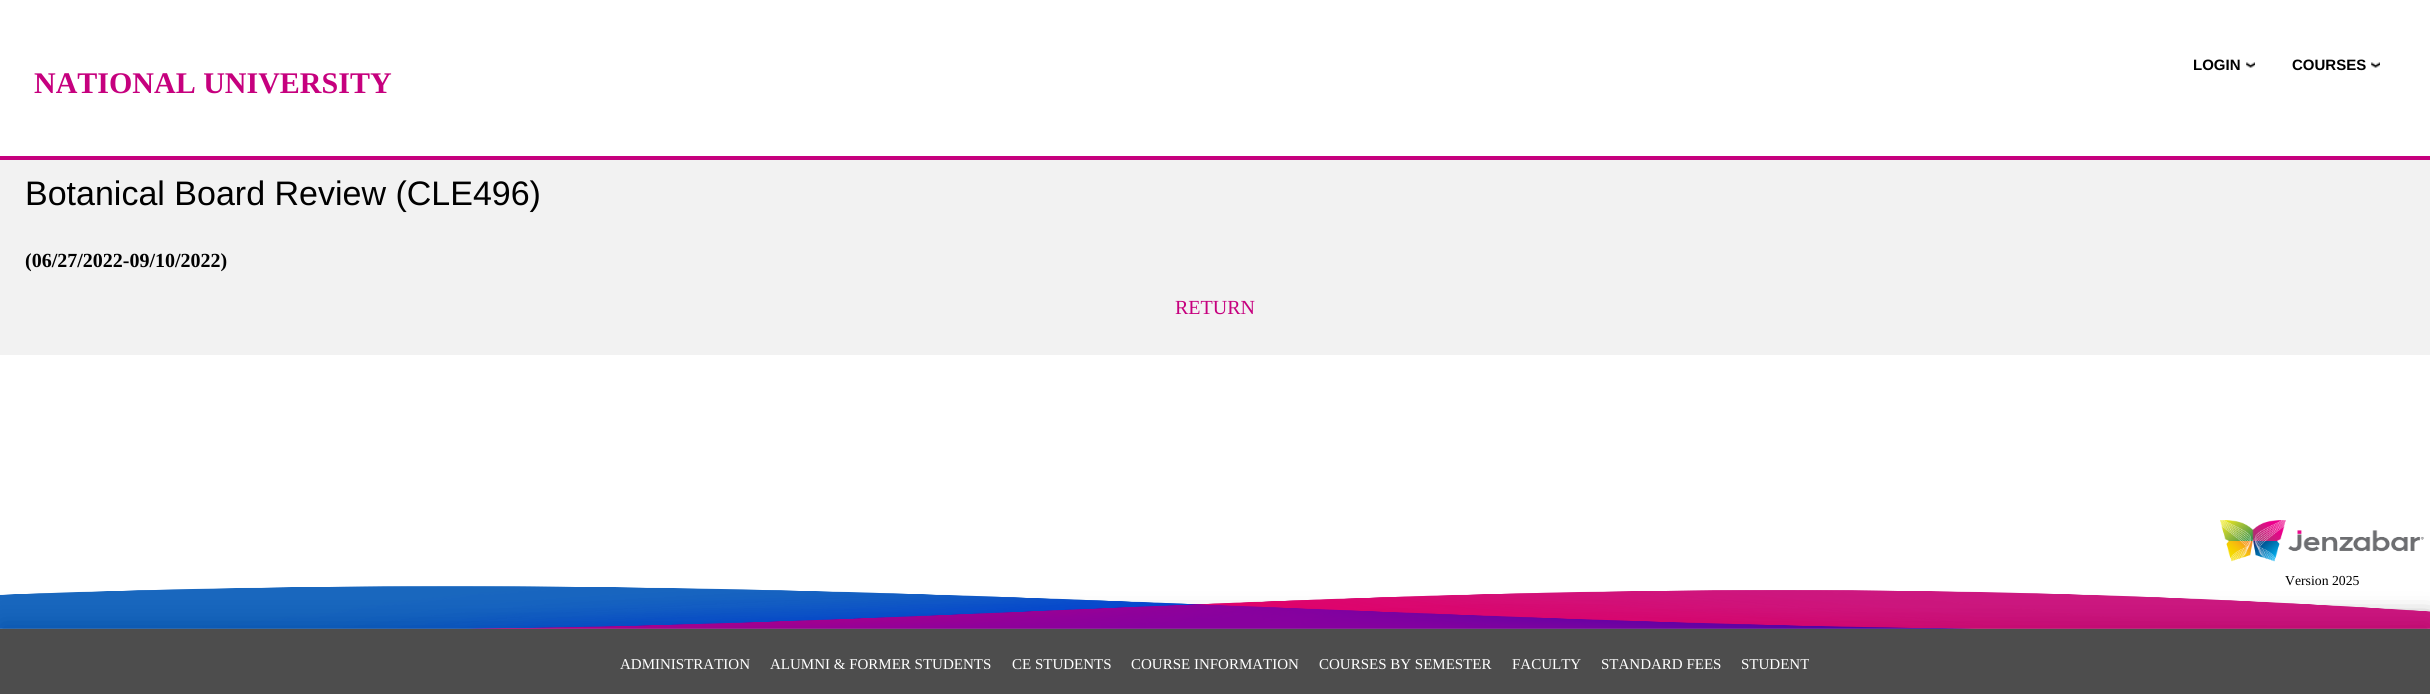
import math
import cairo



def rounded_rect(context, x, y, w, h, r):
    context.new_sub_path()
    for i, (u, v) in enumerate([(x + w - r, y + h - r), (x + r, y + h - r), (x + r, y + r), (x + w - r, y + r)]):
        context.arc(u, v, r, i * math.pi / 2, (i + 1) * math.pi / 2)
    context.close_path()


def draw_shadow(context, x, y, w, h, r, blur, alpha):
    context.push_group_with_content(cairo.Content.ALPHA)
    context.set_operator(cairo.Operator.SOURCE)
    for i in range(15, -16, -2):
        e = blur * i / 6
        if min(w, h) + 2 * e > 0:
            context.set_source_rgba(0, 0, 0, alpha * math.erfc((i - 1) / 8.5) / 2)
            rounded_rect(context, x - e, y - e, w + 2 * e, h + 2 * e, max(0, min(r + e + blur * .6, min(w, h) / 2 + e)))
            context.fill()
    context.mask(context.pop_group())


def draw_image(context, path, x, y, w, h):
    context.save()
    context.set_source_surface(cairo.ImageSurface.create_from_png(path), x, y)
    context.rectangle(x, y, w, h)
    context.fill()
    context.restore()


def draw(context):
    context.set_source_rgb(1, 1, 1)
    context.paint()
    context.set_source_rgb(198 / 255, 0, 126 / 255)
    context.rectangle(0, 156, 2430, 4)
    context.fill()
    draw_image(context, "images/1.png", 2246, 62, 9, 6)
    draw_image(context, "images/2.png", 2371, 62, 9, 6)
    context.set_source_rgb(242 / 255, 242 / 255, 242 / 255)
    context.rectangle(0, 160, 2430, 195)
    context.fill()
    draw_image(context, "images/3.png", 2220, 520, 204, 42)
    context.set_source_rgb(77 / 255, 77 / 255, 77 / 255)
    draw_shadow(context, 0, 623, 2430, 66, 0, 12.5, 1)
    draw_image(context, "images/4.png", 0, 586, 2430, 43)
    context.set_source_rgb(77 / 255, 77 / 255, 77 / 255)
    context.rectangle(0, 629, 2430, 65)
    context.fill()
    context.select_font_face("Liberation Sans", cairo.FontSlant.NORMAL, cairo.FontWeight.BOLD)
    context.set_font_size(15)
    context.set_source_rgb(0, 0, 0)
    context.move_to(2193, 70)
    context.show_text("LOGIN")
    context.move_to(2292, 70)
    context.show_text("COURSES")
    context.select_font_face("Liberation Serif", cairo.FontSlant.NORMAL, cairo.FontWeight.BOLD)
    context.set_font_size(30)
    context.set_source_rgb(198 / 255, 0, 126 / 255)
    context.move_to(34, 93)
    context.show_text("NATIONAL UNIVERSITY")
    context.select_font_face("Liberation Sans")
    context.set_font_size(34)
    context.set_source_rgb(0, 0, 0)
    context.move_to(25, 205)
    context.show_text("Botanical Board Review (CLE496)")
    context.select_font_face("Liberation Serif", cairo.FontSlant.NORMAL, cairo.FontWeight.BOLD)
    context.set_font_size(20)
    context.move_to(25, 267)
    context.show_text("(06/27/2022-09/10/2022)")
    context.select_font_face("Liberation Serif")
    context.set_source_rgb(198 / 255, 0, 126 / 255)
    context.move_to(1175, 314)
    context.show_text("RETURN")
    context.set_font_size(13.75)
    context.set_source_rgb(0, 0, 0)
    context.move_to(2285, 585)
    context.show_text("Version 2025")
    context.set_font_size(15)
    context.set_source_rgb(1, 1, 1)
    context.move_to(620, 669)
    context.show_text("ADMINISTRATION")
    context.move_to(770, 669)
    context.show_text("ALUMNI & FORMER STUDENTS")
    context.move_to(1012, 669)
    context.show_text("CE STUDENTS")
    context.move_to(1131, 669)
    context.show_text("COURSE INFORMATION")
    context.move_to(1319, 669)
    context.show_text("COURSES BY SEMESTER")
    context.move_to(1512, 669)
    context.show_text("FACULTY")
    context.move_to(1601, 669)
    context.show_text("STANDARD FEES")
    context.move_to(1741, 669)
    context.show_text("STUDENT")


surface = cairo.ImageSurface(cairo.Format.RGB24, 2430, 694)
context = cairo.Context(surface)
options = cairo.FontOptions()
options.set_hint_metrics(cairo.HintMetrics.OFF)
options.set_hint_style(cairo.HintStyle.NONE)
context.set_font_options(options)
context.set_miter_limit(4)
draw(context)
surface.write_to_png("out.png")
